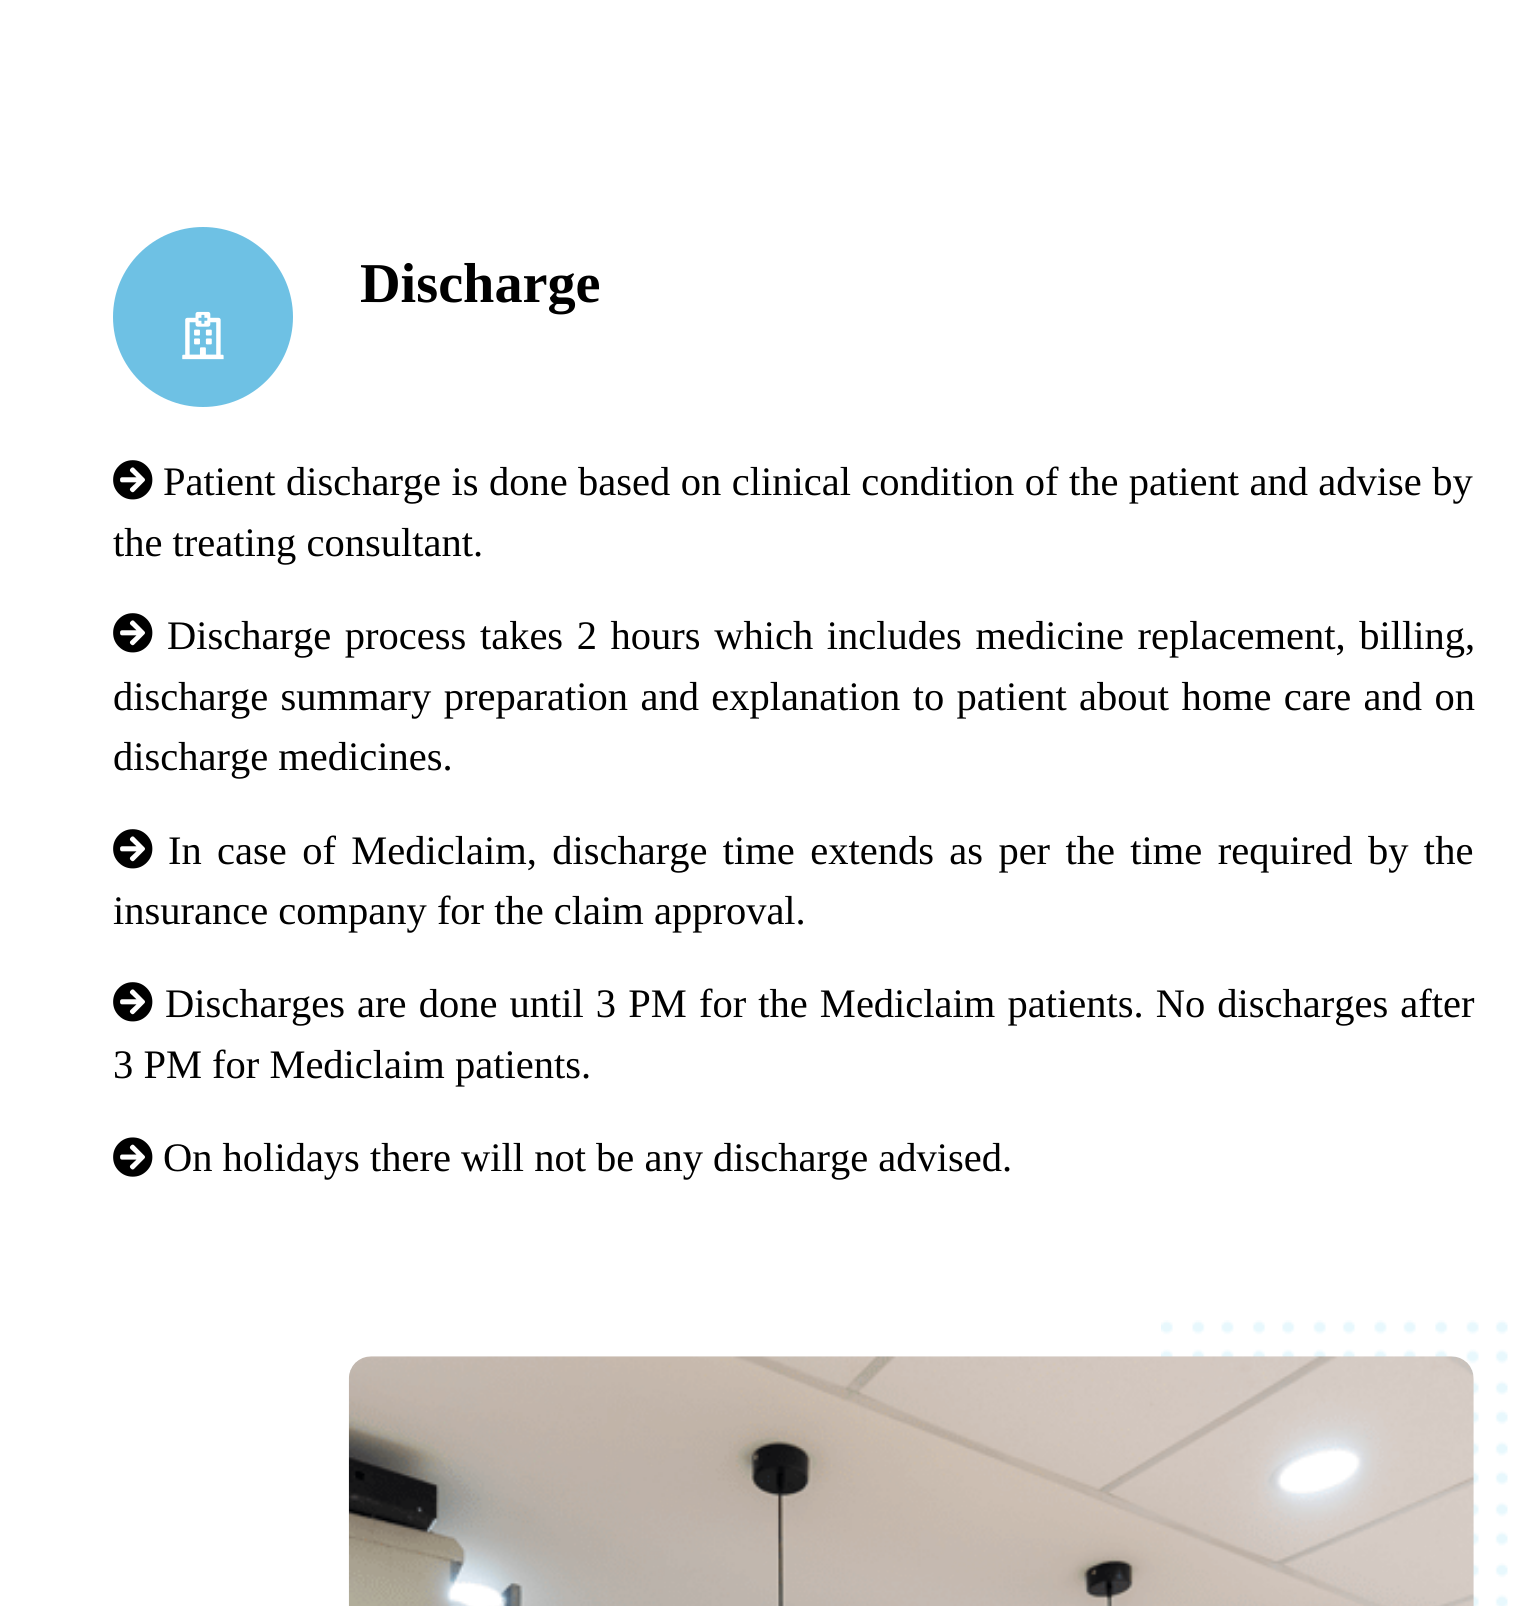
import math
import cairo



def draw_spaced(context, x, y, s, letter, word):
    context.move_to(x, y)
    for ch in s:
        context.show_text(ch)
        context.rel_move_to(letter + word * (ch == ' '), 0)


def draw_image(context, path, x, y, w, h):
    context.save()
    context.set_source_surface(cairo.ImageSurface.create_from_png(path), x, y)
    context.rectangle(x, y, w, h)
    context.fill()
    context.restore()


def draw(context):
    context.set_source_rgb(1, 1, 1)
    context.paint()
    context.set_source_rgb(110 / 255, 193 / 255, 228 / 255)
    context.arc(203, 317, 90, 0, 2 * math.pi)
    context.fill()
    draw_image(context, "images/1.png", 182, 311, 42, 49)
    draw_image(context, "images/2.png", 113, 460, 40, 40)
    draw_image(context, "images/2.png", 113, 613, 40, 40)
    draw_image(context, "images/2.png", 113, 829, 40, 40)
    draw_image(context, "images/2.png", 113, 982, 40, 40)
    draw_image(context, "images/3.png", 113, 1137, 40, 40)
    draw_image(context, "images/4.png", 1161, 1320, 347, 286)
    draw_image(context, "images/5.png", 348, 1356, 1126, 250)
    context.select_font_face("Liberation Serif", cairo.FontSlant.NORMAL, cairo.FontWeight.BOLD)
    context.set_font_size(56.25)
    context.set_source_rgb(0, 0, 0)
    context.move_to(360, 302)
    context.show_text("Discharge")
    context.select_font_face("Liberation Serif")
    context.set_font_size(40.5)
    draw_spaced(context, 163, 495, "Patient discharge is done based on clinical condition of the patient and advise by", 0, 0.3)
    context.move_to(113, 556)
    context.show_text("the treating consultant.")
    draw_spaced(context, 167, 649, "Discharge process takes 2 hours which includes medicine replacement, billing,", 0, 3.5)
    draw_spaced(context, 113, 710, "discharge summary preparation and explanation to patient about home care and on", 0, 2.25)
    context.move_to(113, 770)
    context.show_text("discharge medicines.")
    draw_spaced(context, 168, 864, "In case of Mediclaim, discharge time extends as per the time required by the", 0, 5.25)
    context.move_to(113, 924)
    context.show_text("insurance company for the claim approval.")
    draw_spaced(context, 165, 1017, "Discharges are done until 3 PM for the Mediclaim patients. No discharges after", 0, 2)
    context.move_to(113, 1078)
    context.show_text("3 PM for Mediclaim patients.")
    context.move_to(163, 1171)
    context.show_text("On holidays there will not be any discharge advised.")


surface = cairo.ImageSurface(cairo.Format.RGB24, 1540, 1606)
context = cairo.Context(surface)
options = cairo.FontOptions()
options.set_hint_metrics(cairo.HintMetrics.OFF)
options.set_hint_style(cairo.HintStyle.NONE)
context.set_font_options(options)
context.set_miter_limit(4)
draw(context)
surface.write_to_png("out.png")
